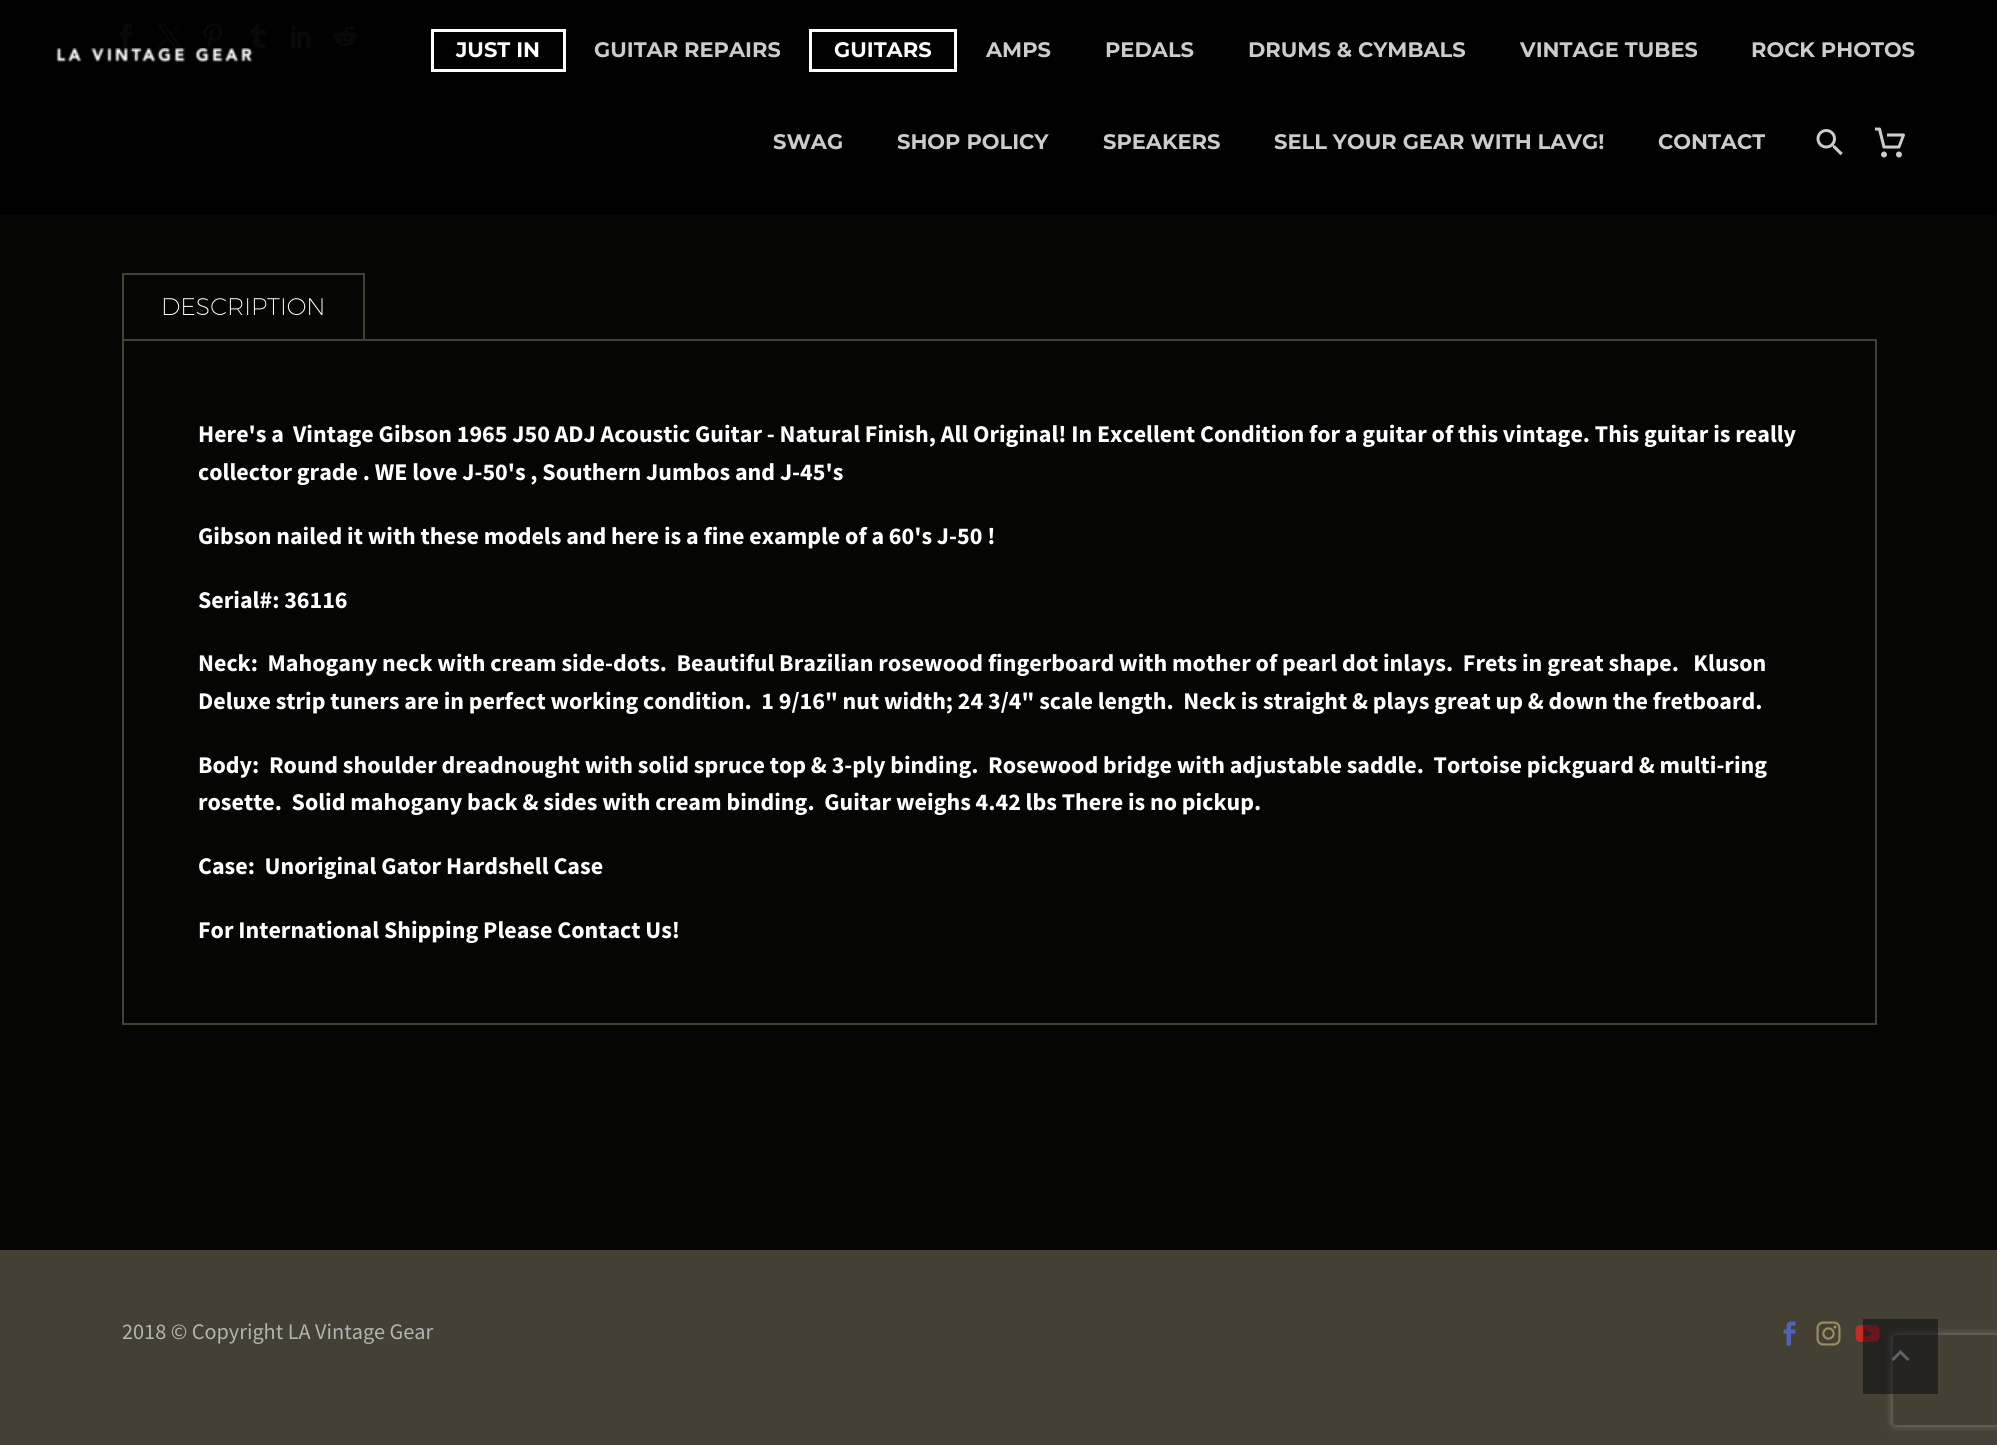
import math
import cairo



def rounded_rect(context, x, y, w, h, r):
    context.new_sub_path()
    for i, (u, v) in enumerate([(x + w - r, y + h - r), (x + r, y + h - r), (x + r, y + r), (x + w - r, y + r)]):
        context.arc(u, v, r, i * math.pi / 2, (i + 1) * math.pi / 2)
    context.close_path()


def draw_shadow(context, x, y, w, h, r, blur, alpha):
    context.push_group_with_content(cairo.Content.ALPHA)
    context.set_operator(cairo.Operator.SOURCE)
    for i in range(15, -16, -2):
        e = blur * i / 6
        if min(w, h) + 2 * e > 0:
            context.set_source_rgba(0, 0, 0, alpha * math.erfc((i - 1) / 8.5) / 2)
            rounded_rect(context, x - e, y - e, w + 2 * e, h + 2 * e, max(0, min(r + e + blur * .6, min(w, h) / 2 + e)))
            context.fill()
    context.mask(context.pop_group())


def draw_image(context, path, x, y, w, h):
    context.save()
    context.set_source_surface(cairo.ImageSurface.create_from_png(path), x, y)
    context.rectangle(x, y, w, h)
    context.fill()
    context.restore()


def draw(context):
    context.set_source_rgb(68 / 255, 64 / 255, 51 / 255)
    context.paint()
    context.set_source_rgb(5 / 255, 5 / 255, 4 / 255)
    context.rectangle(0, 0, 1997, 1250)
    context.fill()
    draw_image(context, "images/4.png", 120, 24, 13, 24)
    draw_image(context, "images/5.png", 157, 24, 25, 24)
    draw_image(context, "images/6.png", 203, 24, 20, 24)
    draw_image(context, "images/7.png", 250, 24, 16, 24)
    draw_image(context, "images/8.png", 291, 25, 20, 23)
    draw_image(context, "images/9.png", 333, 26, 24, 20)
    context.set_source_rgba(0, 0, 0, 0.95)
    context.rectangle(0, 0, 1997, 215)
    context.fill()
    draw_image(context, "images/1.png", 56, 48, 197, 14)
    context.rectangle(432.5, 30.5, 132, 40)
    context.set_source_rgb(1, 1, 1)
    context.set_line_width(3)
    context.stroke()
    context.rectangle(810.5, 30.5, 145, 40)
    context.stroke()
    draw_image(context, "images/2.png", 1816, 129, 27, 27)
    draw_image(context, "images/3.png", 1875, 127, 30, 31)
    context.rectangle(123, 340, 1753, 684)
    context.set_source_rgb(68 / 255, 64 / 255, 50 / 255)
    context.set_line_width(2)
    context.stroke()
    context.rectangle(123, 274, 241, 66)
    context.stroke()
    draw_image(context, "images/10.png", 1783, 1321, 13, 25)
    draw_image(context, "images/11.png", 1816, 1321, 25, 25)
    draw_image(context, "images/12.png", 1855, 1325, 25, 17)
    context.save()
    context.set_fill_rule(cairo.FillRule.EVEN_ODD)
    context.new_path()
    context.move_to(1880, 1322)
    context.line_to(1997, 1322)
    context.line_to(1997, 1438)
    context.line_to(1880, 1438)
    context.close_path()
    context.move_to(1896, 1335)
    context.line_to(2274, 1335)
    context.curve_to(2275.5, 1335, 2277, 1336.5, 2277, 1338)
    context.line_to(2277, 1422)
    context.curve_to(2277, 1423.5, 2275.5, 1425, 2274, 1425)
    context.line_to(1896, 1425)
    context.curve_to(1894.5, 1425, 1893, 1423.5, 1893, 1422)
    context.line_to(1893, 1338)
    context.curve_to(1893, 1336.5, 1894.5, 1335, 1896, 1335)
    context.close_path()
    context.clip()
    context.set_source_rgb(128 / 255, 128 / 255, 128 / 255)
    draw_shadow(context, 1893, 1335, 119, 90, 3, 4, 1)
    context.restore()
    context.set_source_rgba(6 / 255, 6 / 255, 15 / 255, 0.5)
    context.rectangle(1863, 1319, 75, 75)
    context.fill()
    context.set_source_rgba(153 / 255, 169 / 255, 181 / 255, 0.5)
    context.new_path()
    context.move_to(1893.5, 1361)
    context.line_to(1900.5, 1354)
    context.line_to(1907.5, 1361)
    context.line_to(1909.5, 1359)
    context.line_to(1900.5, 1350)
    context.line_to(1891.5, 1359)
    context.close_path()
    context.fill()
    context.select_font_face("Montserrat", cairo.FontSlant.NORMAL, cairo.FontWeight.BOLD)
    context.set_font_size(21)
    context.set_source_rgb(1, 1, 1)
    context.move_to(456, 57)
    context.show_text("JUST IN")
    context.set_source_rgb(204 / 255, 204 / 255, 204 / 255)
    context.move_to(594, 57)
    context.show_text("GUITAR REPAIRS")
    context.set_source_rgb(1, 1, 1)
    context.move_to(834, 57)
    context.show_text("GUITARS")
    context.set_source_rgb(204 / 255, 204 / 255, 204 / 255)
    context.move_to(986, 57)
    context.show_text("AMPS")
    context.move_to(1105, 57)
    context.show_text("PEDALS")
    context.move_to(1248, 57)
    context.show_text("DRUMS & CYMBALS")
    context.move_to(1520, 57)
    context.show_text("VINTAGE TUBES")
    context.move_to(1751, 57)
    context.show_text("ROCK PHOTOS")
    context.move_to(773, 149)
    context.show_text("SWAG")
    context.move_to(897, 149)
    context.show_text("SHOP POLICY")
    context.move_to(1103, 149)
    context.show_text("SPEAKERS")
    context.move_to(1274, 149)
    context.show_text("SELL YOUR GEAR WITH LAVG!")
    context.move_to(1658, 149)
    context.show_text("CONTACT")
    context.select_font_face("Montserrat ExtraLight")
    context.set_font_size(24)
    context.set_source_rgb(1, 1, 1)
    context.move_to(161, 315)
    context.show_text("DESCRIPTION")
    context.select_font_face("Source Sans Pro", cairo.FontSlant.NORMAL, cairo.FontWeight.BOLD)
    context.move_to(198, 442)
    context.show_text("Here's a")
    context.move_to(293, 442)
    context.show_text("Vintage Gibson 1965 J50 ADJ Acoustic Guitar - Natural Finish, All Original! In Excellent Condition for a guitar of this vintage. This guitar is really")
    context.move_to(198, 480)
    context.show_text("collector grade . WE love J-50's , Southern Jumbos and J-45's")
    context.move_to(198, 544)
    context.show_text("Gibson nailed it with these models and here is a fine example of a 60's J-50 !")
    context.move_to(198, 608)
    context.show_text("Serial#: 36116")
    context.move_to(198, 671)
    context.show_text("Neck:  Mahogany neck with cream side-dots.  Beautiful Brazilian rosewood fingerboard with mother of pearl dot inlays.  Frets in great shape.   Kluson")
    context.move_to(198, 709)
    context.show_text("Deluxe strip tuners are in perfect working condition.  1 9/16\" nut width; 24 3/4\" scale length.  Neck is straight & plays great up & down the fretboard.")
    context.move_to(198, 773)
    context.show_text("Body:  Round shoulder dreadnought with solid spruce top & 3-ply binding.  Rosewood bridge with adjustable saddle.  Tortoise pickguard & multi-ring")
    context.move_to(198, 810)
    context.show_text("rosette.  Solid mahogany back & sides with cream binding.  Guitar weighs 4.42 lbs There is no pickup.")
    context.move_to(198, 874)
    context.show_text("Case:  Unoriginal Gator Hardshell Case")
    context.move_to(198, 938)
    context.show_text("For International Shipping Please Contact Us!")
    context.select_font_face("Source Sans Pro")
    context.set_font_size(22.25)
    context.set_source_rgb(179 / 255, 179 / 255, 179 / 255)
    context.move_to(122, 1339)
    context.show_text("2018 © Copyright LA Vintage Gear")


surface = cairo.ImageSurface(cairo.Format.RGB24, 1997, 1445)
context = cairo.Context(surface)
options = cairo.FontOptions()
options.set_hint_metrics(cairo.HintMetrics.OFF)
options.set_hint_style(cairo.HintStyle.NONE)
context.set_font_options(options)
context.set_miter_limit(4)
draw(context)
surface.write_to_png("out.png")
